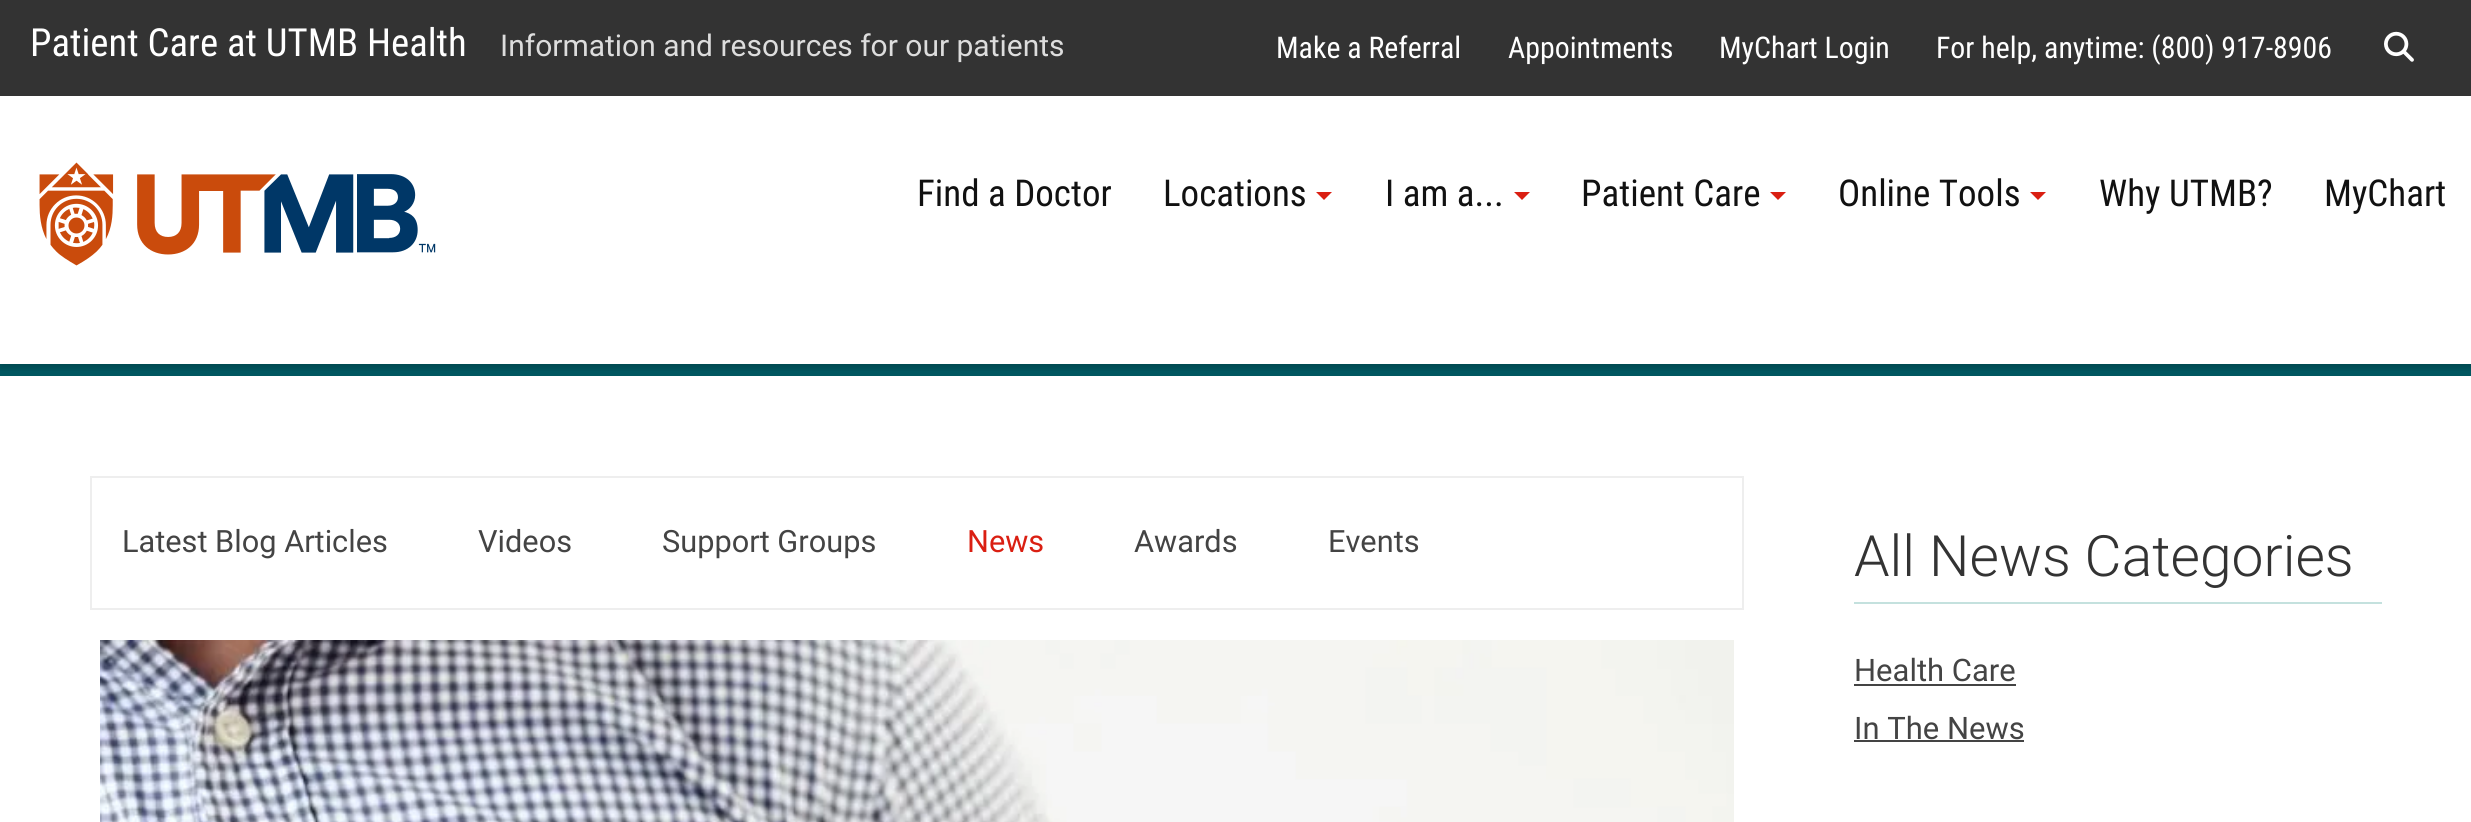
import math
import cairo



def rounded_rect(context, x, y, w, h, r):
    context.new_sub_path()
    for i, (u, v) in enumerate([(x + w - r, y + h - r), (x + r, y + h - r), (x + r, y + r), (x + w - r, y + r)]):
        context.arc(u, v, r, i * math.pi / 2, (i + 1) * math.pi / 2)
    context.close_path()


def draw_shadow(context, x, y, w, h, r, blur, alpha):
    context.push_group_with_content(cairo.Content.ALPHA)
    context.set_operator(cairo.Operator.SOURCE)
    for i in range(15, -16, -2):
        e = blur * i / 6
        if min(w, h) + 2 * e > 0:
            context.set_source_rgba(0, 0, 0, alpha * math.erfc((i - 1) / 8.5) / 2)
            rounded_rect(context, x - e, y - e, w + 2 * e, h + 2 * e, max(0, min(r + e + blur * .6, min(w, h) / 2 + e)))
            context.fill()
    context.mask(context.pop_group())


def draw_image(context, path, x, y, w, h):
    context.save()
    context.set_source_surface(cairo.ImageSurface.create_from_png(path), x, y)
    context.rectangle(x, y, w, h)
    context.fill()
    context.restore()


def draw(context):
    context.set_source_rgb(1, 1, 1)
    context.paint()
    context.set_source_rgb(51 / 255, 51 / 255, 51 / 255)
    context.rectangle(0, 0, 2471, 96)
    context.fill()
    draw_image(context, "images/1.png", 2384, 31, 30, 31)
    context.set_source_rgb(0, 87 / 255, 96 / 255)
    context.rectangle(0, 364, 2471, 12)
    context.fill()
    context.save()
    context.rectangle(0, 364, 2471, 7)
    context.clip()
    context.set_source_rgb(0, 0, 0)
    draw_shadow(context, 0, 100, 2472, 268, 0, 3, 0.16)
    context.restore()
    draw_image(context, "images/2.png", 39, 162, 397, 104)
    context.set_source_rgb(218 / 255, 31 / 255, 18 / 255)
    context.new_path()
    context.move_to(1316, 192)
    context.line_to(1332, 192)
    context.line_to(1324, 200)
    context.close_path()
    context.fill()
    context.new_path()
    context.move_to(1514, 192)
    context.line_to(1530, 192)
    context.line_to(1522, 200)
    context.close_path()
    context.fill()
    context.new_path()
    context.move_to(1770, 192)
    context.line_to(1786, 192)
    context.line_to(1778, 200)
    context.close_path()
    context.fill()
    context.new_path()
    context.move_to(2030, 192)
    context.line_to(2046, 192)
    context.line_to(2038, 200)
    context.close_path()
    context.fill()
    context.rectangle(91, 477, 1652, 132)
    context.set_source_rgb(238 / 255, 238 / 255, 238 / 255)
    context.stroke()
    draw_image(context, "images/3.png", 100, 640, 1634, 182)
    context.set_source_rgb(196 / 255, 225 / 255, 222 / 255)
    context.rectangle(1854, 602, 528, 2)
    context.fill()
    context.set_source_rgb(68 / 255, 68 / 255, 68 / 255)
    context.rectangle(1854, 684, 162, 2)
    context.fill()
    context.rectangle(1854, 740, 170, 2)
    context.fill()
    context.select_font_face("Roboto Condensed")
    context.set_font_size(38.75)
    context.set_source_rgb(1, 1, 1)
    context.move_to(30, 56)
    context.show_text("Patient Care at UTMB Health")
    context.select_font_face("Roboto")
    context.set_font_size(30)
    context.set_source_rgb(221 / 255, 221 / 255, 221 / 255)
    context.move_to(500, 56)
    context.show_text("Information and resources for our patients")
    context.select_font_face("Roboto Condensed")
    context.set_font_size(29.9)
    context.set_source_rgb(1, 1, 1)
    context.move_to(1276, 58)
    context.show_text("Make a Referral")
    context.move_to(1508, 58)
    context.show_text("Appointments")
    context.move_to(1719, 58)
    context.show_text("MyChart Login")
    context.move_to(1936, 58)
    context.show_text("For help, anytime: (800) 917-8906")
    context.set_font_size(37)
    context.set_source_rgb(17 / 255, 17 / 255, 17 / 255)
    context.move_to(917, 206)
    context.show_text("Find a Doctor")
    context.move_to(1163, 206)
    context.show_text("Locations")
    context.move_to(1385, 206)
    context.show_text("I am a...")
    context.move_to(1581, 206)
    context.show_text("Patient Care")
    context.move_to(1838, 206)
    context.show_text("Online Tools")
    context.move_to(2099, 206)
    context.show_text("Why UTMB?")
    context.move_to(2324, 206)
    context.show_text("MyChart")
    context.select_font_face("Roboto")
    context.set_font_size(30.75)
    context.set_source_rgb(68 / 255, 68 / 255, 68 / 255)
    context.move_to(122, 552)
    context.show_text("Latest Blog Articles")
    context.move_to(478, 552)
    context.show_text("Videos")
    context.move_to(662, 552)
    context.show_text("Support Groups")
    context.set_source_rgb(218 / 255, 31 / 255, 18 / 255)
    context.move_to(967, 552)
    context.show_text("News")
    context.set_source_rgb(68 / 255, 68 / 255, 68 / 255)
    context.move_to(1134, 552)
    context.show_text("Awards")
    context.move_to(1328, 552)
    context.show_text("Events")
    context.select_font_face("Roboto Light")
    context.set_font_size(57)
    context.set_source_rgb(51 / 255, 51 / 255, 51 / 255)
    context.move_to(1854, 576)
    context.show_text("All News Categories")
    context.select_font_face("Roboto")
    context.set_font_size(31)
    context.set_source_rgb(68 / 255, 68 / 255, 68 / 255)
    context.move_to(1854, 681)
    context.show_text("Health Care")
    context.move_to(1854, 739)
    context.show_text("In The News")


surface = cairo.ImageSurface(cairo.Format.RGB24, 2471, 822)
context = cairo.Context(surface)
options = cairo.FontOptions()
options.set_hint_metrics(cairo.HintMetrics.OFF)
options.set_hint_style(cairo.HintStyle.NONE)
context.set_font_options(options)
context.set_miter_limit(4)
draw(context)
surface.write_to_png("out.png")
